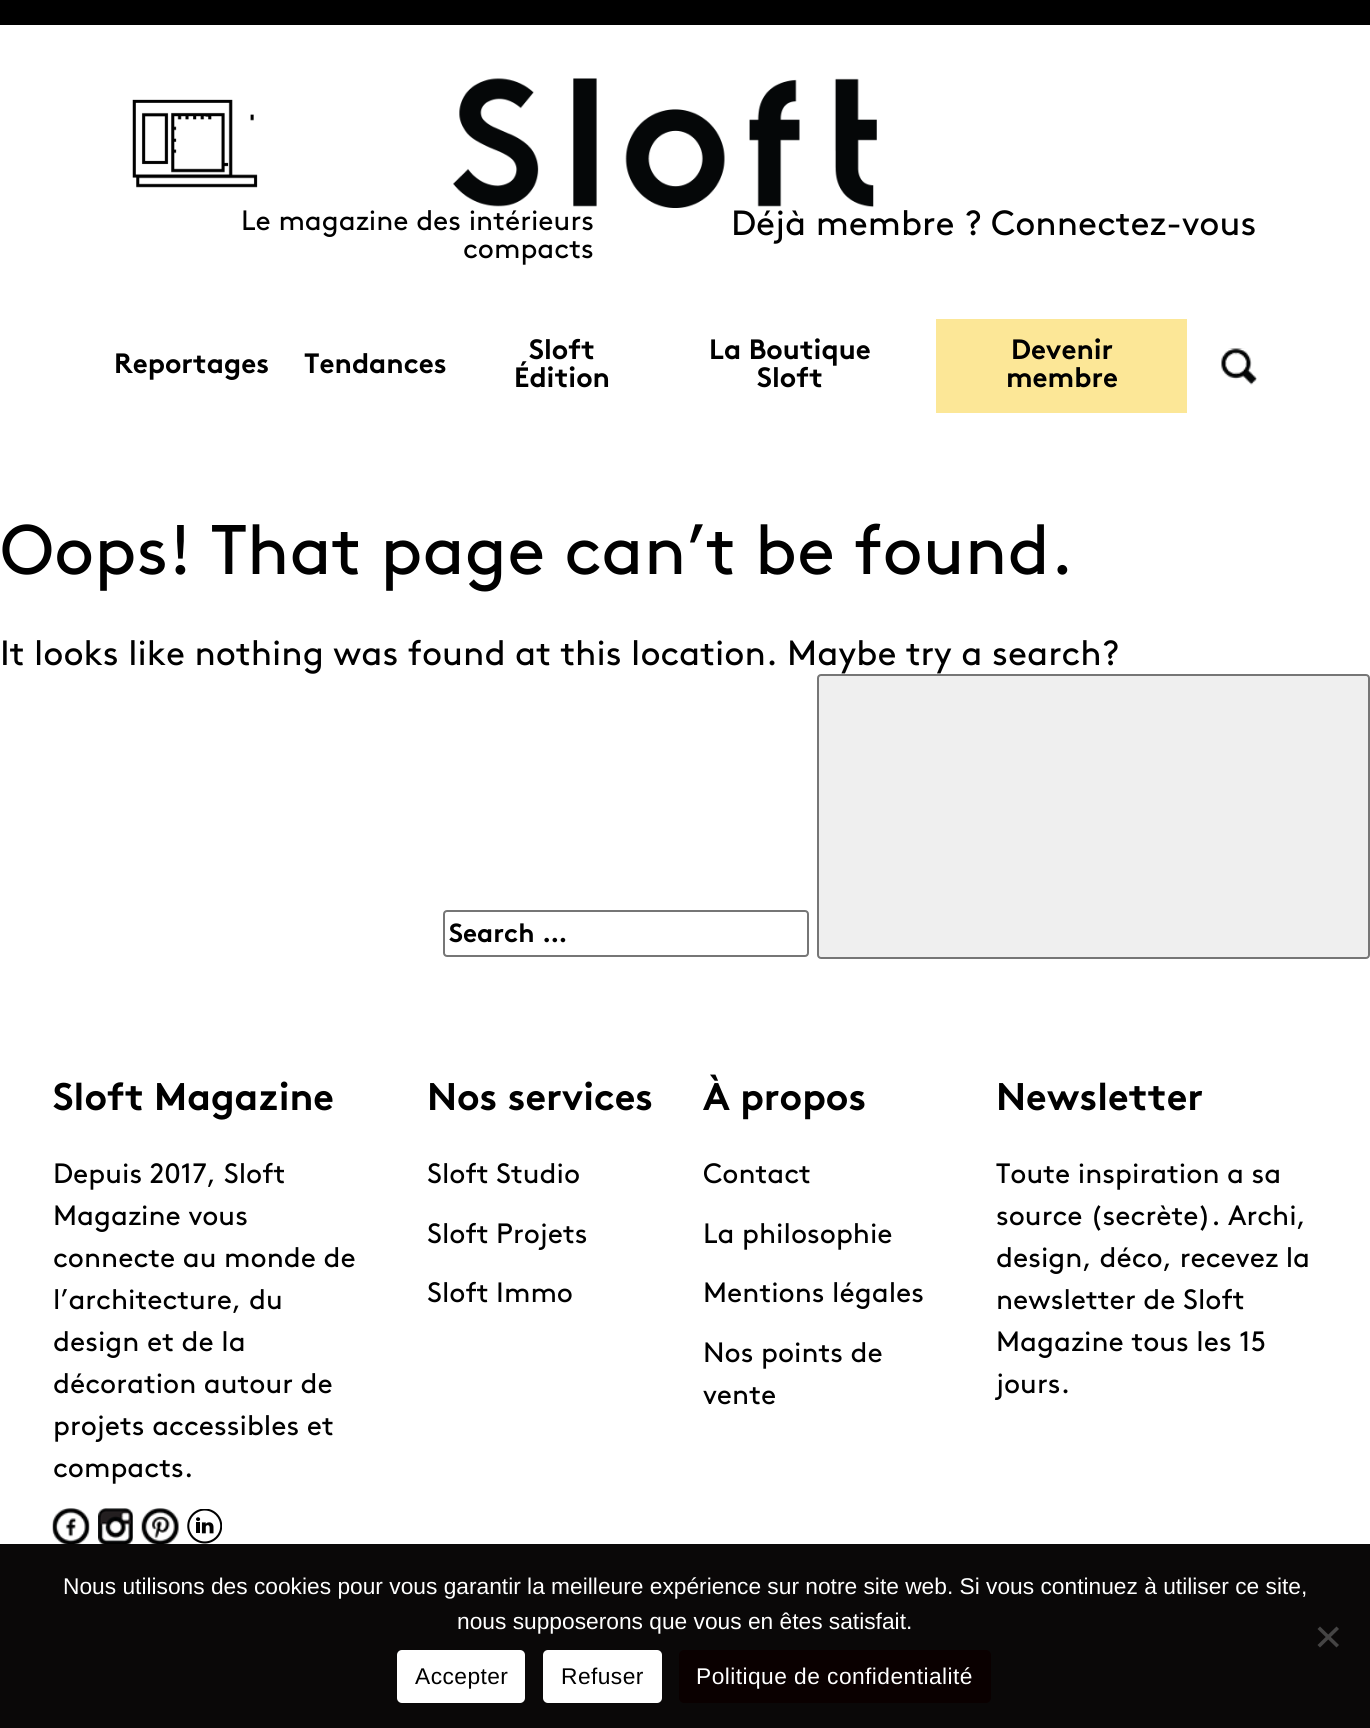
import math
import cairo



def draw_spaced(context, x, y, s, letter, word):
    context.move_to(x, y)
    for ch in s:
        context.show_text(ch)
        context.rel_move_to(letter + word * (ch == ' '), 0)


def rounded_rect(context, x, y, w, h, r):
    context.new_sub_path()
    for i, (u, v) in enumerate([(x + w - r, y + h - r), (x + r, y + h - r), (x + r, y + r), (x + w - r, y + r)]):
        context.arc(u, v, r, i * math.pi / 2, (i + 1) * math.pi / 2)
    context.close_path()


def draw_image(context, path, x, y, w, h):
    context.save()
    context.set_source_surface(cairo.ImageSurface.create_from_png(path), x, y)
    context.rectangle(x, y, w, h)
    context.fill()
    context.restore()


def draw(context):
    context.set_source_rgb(1, 1, 1)
    context.paint()
    context.set_source_rgb(0, 0, 0)
    context.rectangle(0, 0, 1370, 25)
    context.fill()
    draw_image(context, "images/1.png", 132, 99, 126, 89)
    draw_image(context, "images/2.png", 453, 78, 424, 130)
    context.set_source_rgb(252 / 255, 231 / 255, 151 / 255)
    context.rectangle(936, 319, 251, 94)
    context.fill()
    draw_image(context, "images/3.png", 1221, 348, 36, 37)
    rounded_rect(context, 444, 911, 364, 45, 3)
    context.set_source_rgb(118 / 255, 118 / 255, 118 / 255)
    context.stroke()
    context.set_source_rgb(239 / 255, 239 / 255, 239 / 255)
    rounded_rect(context, 818, 675, 551, 283, 3)
    context.fill_preserve()
    context.set_source_rgb(118 / 255, 118 / 255, 118 / 255)
    context.stroke()
    draw_image(context, "images/4.png", 52, 1508, 38, 36)
    draw_image(context, "images/5.png", 98, 1508, 35, 36)
    draw_image(context, "images/6.png", 141, 1508, 38, 36)
    draw_image(context, "images/7.png", 187, 1509, 35, 35)
    context.set_source_rgb(10 / 255, 8 / 255, 8 / 255)
    context.rectangle(0, 1544, 1370, 184)
    context.fill()
    context.set_source_rgb(69 / 255, 68 / 255, 68 / 255)
    context.new_path()
    context.move_to(1336.5, 1626.5)
    context.line_to(1339, 1629)
    context.line_to(1320, 1647.5)
    context.line_to(1317.5, 1645)
    context.close_path()
    context.fill()
    context.new_path()
    context.move_to(1317.5, 1629)
    context.line_to(1320, 1626.5)
    context.line_to(1339, 1645)
    context.line_to(1336.5, 1647.5)
    context.close_path()
    context.fill()
    context.set_source_rgb(1, 1, 1)
    rounded_rect(context, 397, 1650, 128, 53, 5)
    context.fill()
    rounded_rect(context, 543, 1650, 119, 53, 5)
    context.fill()
    context.set_source_rgb(10 / 255, 0, 0)
    rounded_rect(context, 679, 1650, 312, 53, 5)
    context.fill()
    context.select_font_face("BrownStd")
    context.set_font_size(28)
    context.set_source_rgb(0, 0, 0)
    context.move_to(241, 230)
    context.show_text("Le magazine des intérieurs")
    context.move_to(463, 258)
    context.show_text("compacts")
    context.set_font_size(35)
    context.move_to(731, 235)
    context.show_text("Déjà membre ? Connectez-vous")
    context.select_font_face("BrownStd", cairo.FontSlant.NORMAL, cairo.FontWeight.BOLD)
    context.set_font_size(28)
    context.move_to(114, 373)
    context.show_text("Reportages")
    context.move_to(304, 373)
    context.show_text("Tendances")
    context.move_to(529, 359)
    context.show_text("Sloft")
    context.move_to(514, 387)
    context.show_text("Édition")
    context.move_to(709, 359)
    context.show_text("La Boutique")
    context.move_to(757, 387)
    context.show_text("Sloft")
    context.move_to(1011, 359)
    context.show_text("Devenir")
    context.move_to(1006, 387)
    context.show_text("membre")
    context.select_font_face("BrownStd")
    context.set_font_size(70)
    context.move_to(0, 574)
    context.show_text("Oops! That page can’t be found.")
    context.set_font_size(35)
    context.move_to(0, 665)
    context.show_text("It looks like nothing was found at this location. Maybe try a search?")
    context.select_font_face("BrownStd", cairo.FontSlant.NORMAL, cairo.FontWeight.BOLD)
    context.set_font_size(26.25)
    context.move_to(449, 942)
    context.show_text("Search …")
    context.set_font_size(38.5)
    context.move_to(53, 1110)
    context.show_text("Sloft Magazine")
    context.select_font_face("BrownStd")
    context.set_font_size(28)
    context.move_to(53, 1183)
    context.show_text("Depuis 2017, Sloft")
    context.move_to(53, 1225)
    context.show_text("Magazine vous")
    context.move_to(53, 1267)
    context.show_text("connecte au monde de")
    context.move_to(53, 1309)
    context.show_text("l’architecture, du")
    context.move_to(53, 1351)
    context.show_text("design et de la")
    context.move_to(53, 1393)
    context.show_text("décoration autour de")
    context.move_to(53, 1435)
    context.show_text("projets accessibles et")
    context.move_to(53, 1477)
    context.show_text("compacts.")
    context.select_font_face("BrownStd", cairo.FontSlant.NORMAL, cairo.FontWeight.BOLD)
    context.set_font_size(38.5)
    context.move_to(427, 1110)
    context.show_text("Nos services")
    context.select_font_face("BrownStd")
    context.set_font_size(28)
    context.move_to(427, 1183)
    context.show_text("Sloft Studio")
    context.move_to(427, 1243)
    context.show_text("Sloft Projets")
    context.move_to(427, 1302)
    context.show_text("Sloft Immo")
    context.select_font_face("BrownStd", cairo.FontSlant.NORMAL, cairo.FontWeight.BOLD)
    context.set_font_size(38.5)
    context.move_to(703, 1110)
    context.show_text("À propos")
    context.select_font_face("BrownStd")
    context.set_font_size(28)
    context.move_to(703, 1183)
    context.show_text("Contact")
    context.move_to(703, 1243)
    context.show_text("La philosophie")
    context.move_to(703, 1302)
    context.show_text("Mentions légales")
    context.move_to(703, 1362)
    context.show_text("Nos points de")
    context.move_to(703, 1404)
    context.show_text("vente")
    context.select_font_face("BrownStd", cairo.FontSlant.NORMAL, cairo.FontWeight.BOLD)
    context.set_font_size(38.5)
    context.move_to(996, 1110)
    context.show_text("Newsletter")
    context.select_font_face("BrownStd")
    context.set_font_size(28)
    context.move_to(996, 1183)
    context.show_text("Toute inspiration a sa")
    context.move_to(996, 1225)
    context.show_text("source (secrète). Archi,")
    context.move_to(996, 1267)
    context.show_text("design, déco, recevez la")
    context.move_to(996, 1309)
    context.show_text("newsletter de Sloft")
    context.move_to(996, 1351)
    context.show_text("Magazine tous les 15")
    context.move_to(996, 1393)
    context.show_text("jours.")
    context.select_font_face("Liberation Sans")
    context.set_font_size(22.75)
    context.set_source_rgb(1, 1, 1)
    context.move_to(63, 1594)
    context.show_text("Nous utilisons des cookies pour vous garantir la meilleure expérience sur notre site web. Si vous continuez à utiliser ce site,")
    context.move_to(457, 1629)
    context.show_text("nous supposerons que vous en êtes satisfait.")
    context.set_source_rgb(0, 0, 0)
    draw_spaced(context, 415, 1684, "Accepter", 0.45, 0)
    draw_spaced(context, 561, 1684, "Refuser", 0.45, 0)
    context.set_source_rgb(1, 1, 1)
    draw_spaced(context, 696, 1684, "Politique de confidentialité", 0.45, 0)


surface = cairo.ImageSurface(cairo.Format.RGB24, 1370, 1728)
context = cairo.Context(surface)
options = cairo.FontOptions()
options.set_hint_metrics(cairo.HintMetrics.OFF)
options.set_hint_style(cairo.HintStyle.NONE)
context.set_font_options(options)
context.set_miter_limit(4)
draw(context)
surface.write_to_png("out.png")
